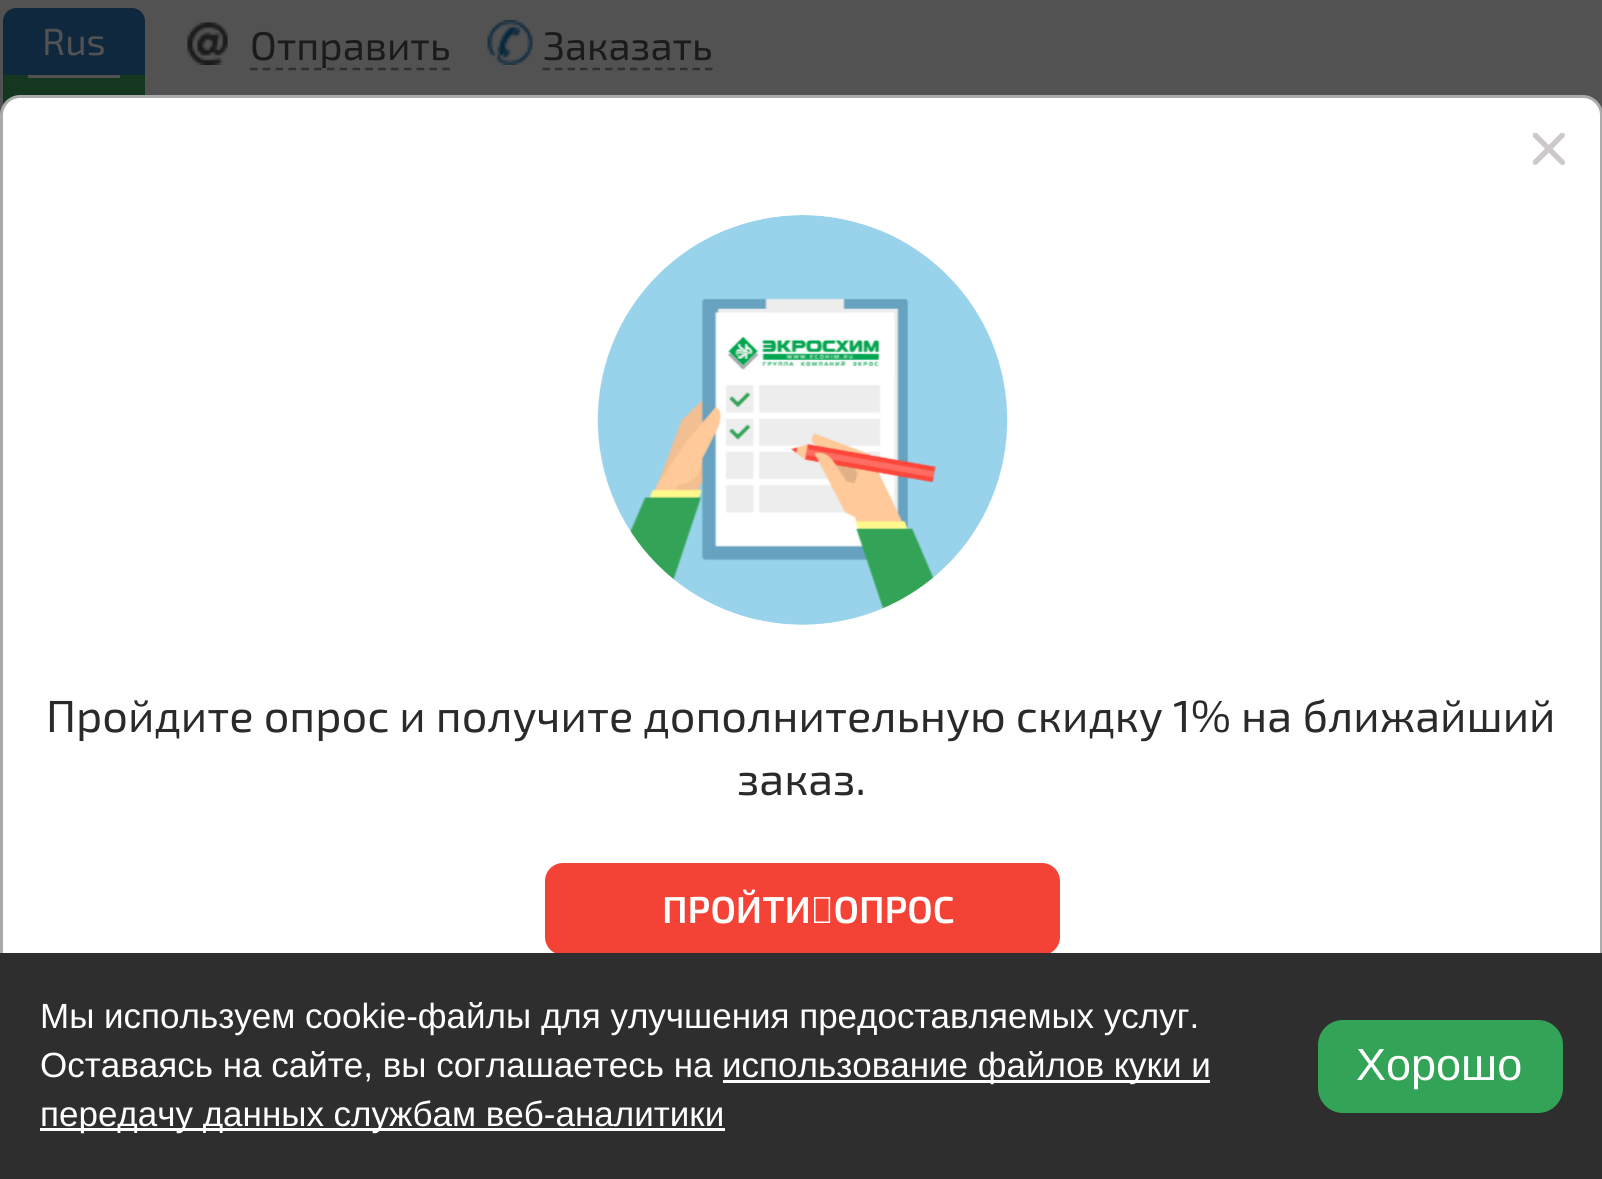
import math
import cairo



def rounded_rect(context, x, y, w, h, r):
    context.new_sub_path()
    for i, (u, v) in enumerate([(x + w - r, y + h - r), (x + r, y + h - r), (x + r, y + r), (x + w - r, y + r)]):
        context.arc(u, v, r, i * math.pi / 2, (i + 1) * math.pi / 2)
    context.close_path()


def draw_image(context, path, x, y, w, h):
    context.save()
    context.set_source_surface(cairo.ImageSurface.create_from_png(path), x, y)
    context.rectangle(x, y, w, h)
    context.fill()
    context.restore()


def draw(context):
    context.set_source_rgb(82 / 255, 82 / 255, 82 / 255)
    context.paint()
    context.set_source_rgb(15 / 255, 40 / 255, 61 / 255)
    context.new_path()
    context.move_to(16, 8)
    context.line_to(132, 8)
    context.curve_to(139, 8, 145, 14, 145, 21)
    context.line_to(145, 75)
    context.line_to(3, 75)
    context.line_to(3, 21)
    context.curve_to(3, 14, 9, 8, 16, 8)
    context.close_path()
    context.fill()
    context.set_source_rgb(21 / 255, 55 / 255, 32 / 255)
    context.rectangle(3, 75, 142, 30)
    context.fill()
    context.set_source_rgb(82 / 255, 82 / 255, 82 / 255)
    context.rectangle(28, 75, 92, 3)
    context.fill()
    draw_image(context, "images/1.png", 187, 22, 41, 43)
    context.new_path()
    context.move_to(250, 69)
    context.line_to(450, 69)
    context.set_source_rgb(48 / 255, 48 / 255, 48 / 255)
    context.set_line_width(2.5)
    context.set_dash([7.5, 5.32])
    context.stroke()
    draw_image(context, "images/2.png", 487, 20, 46, 45)
    context.new_path()
    context.move_to(542.5, 69)
    context.line_to(712.5, 69)
    context.set_dash([7.5, 5])
    context.stroke()
    context.set_source_rgb(1, 1, 1)
    context.new_path()
    context.move_to(20, 96.5)
    context.line_to(1583, 96.5)
    context.curve_to(1593, 96.5, 1601.5, 105, 1601.5, 115)
    context.line_to(1601.5, 1072)
    context.curve_to(1601.5, 1078.5, 1596.5, 1083.5, 1590, 1083.5)
    context.line_to(13, 1083.5)
    context.curve_to(6.5, 1083.5, 1.5, 1078.5, 1.5, 1072)
    context.line_to(1.5, 115)
    context.curve_to(1.5, 105, 10, 96.5, 20, 96.5)
    context.close_path()
    context.fill_preserve()
    context.set_source_rgb(170 / 255, 170 / 255, 170 / 255)
    context.set_line_width(3)
    context.set_dash([])
    context.stroke()
    draw_image(context, "images/3.png", 1533, 133, 32, 32)
    draw_image(context, "images/4.png", 597, 215, 411, 410)
    context.set_source_rgb(244 / 255, 67 / 255, 54 / 255)
    rounded_rect(context, 545, 863, 515, 92, 18)
    context.fill()
    context.set_source_rgb(46 / 255, 46 / 255, 46 / 255)
    context.rectangle(0, 953, 1602, 226)
    context.fill()
    context.set_source_rgb(1, 1, 1)
    context.rectangle(723, 1080, 487, 3)
    context.fill()
    context.rectangle(40, 1128, 685, 3)
    context.fill()
    context.set_source_rgb(51 / 255, 164 / 255, 87 / 255)
    rounded_rect(context, 1318, 1020, 245, 93, 25)
    context.fill()
    context.select_font_face("Exo 2")
    context.set_font_size(37.5)
    context.set_source_rgb(82 / 255, 82 / 255, 82 / 255)
    context.move_to(42, 55)
    context.show_text("Rus")
    context.set_font_size(40)
    context.set_source_rgb(27 / 255, 27 / 255, 27 / 255)
    context.move_to(250, 60)
    context.show_text("Отправить")
    context.move_to(543, 60)
    context.show_text("Заказать")
    context.set_font_size(45)
    context.set_source_rgb(43 / 255, 42 / 255, 41 / 255)
    context.move_to(46, 732)
    context.show_text("Пройдите опрос и получите дополнительную скидку 1% на ближайший")
    context.move_to(737, 795)
    context.show_text("заказ.")
    context.select_font_face("Exo 2 SemiBold")
    context.set_font_size(37.5)
    context.set_source_rgb(1, 1, 1)
    context.move_to(662, 923)
    context.show_text("ПРОЙТИ ОПРОС")
    context.select_font_face("Liberation Sans")
    context.set_font_size(35)
    context.move_to(40, 1028)
    context.show_text("Мы используем cookie-файлы для улучшения предоставляемых услуг.")
    context.move_to(40, 1077)
    context.show_text("Оставаясь на сайте, вы соглашаетесь на")
    context.move_to(722, 1077)
    context.show_text("использование файлов куки и")
    context.move_to(40, 1126)
    context.show_text("передачу данных службам веб-аналитики")
    context.set_font_size(45)
    context.move_to(1356, 1080)
    context.show_text("Хорошо")


surface = cairo.ImageSurface(cairo.Format.RGB24, 1602, 1179)
context = cairo.Context(surface)
options = cairo.FontOptions()
options.set_hint_metrics(cairo.HintMetrics.OFF)
options.set_hint_style(cairo.HintStyle.NONE)
context.set_font_options(options)
context.set_miter_limit(4)
draw(context)
surface.write_to_png("out.png")
